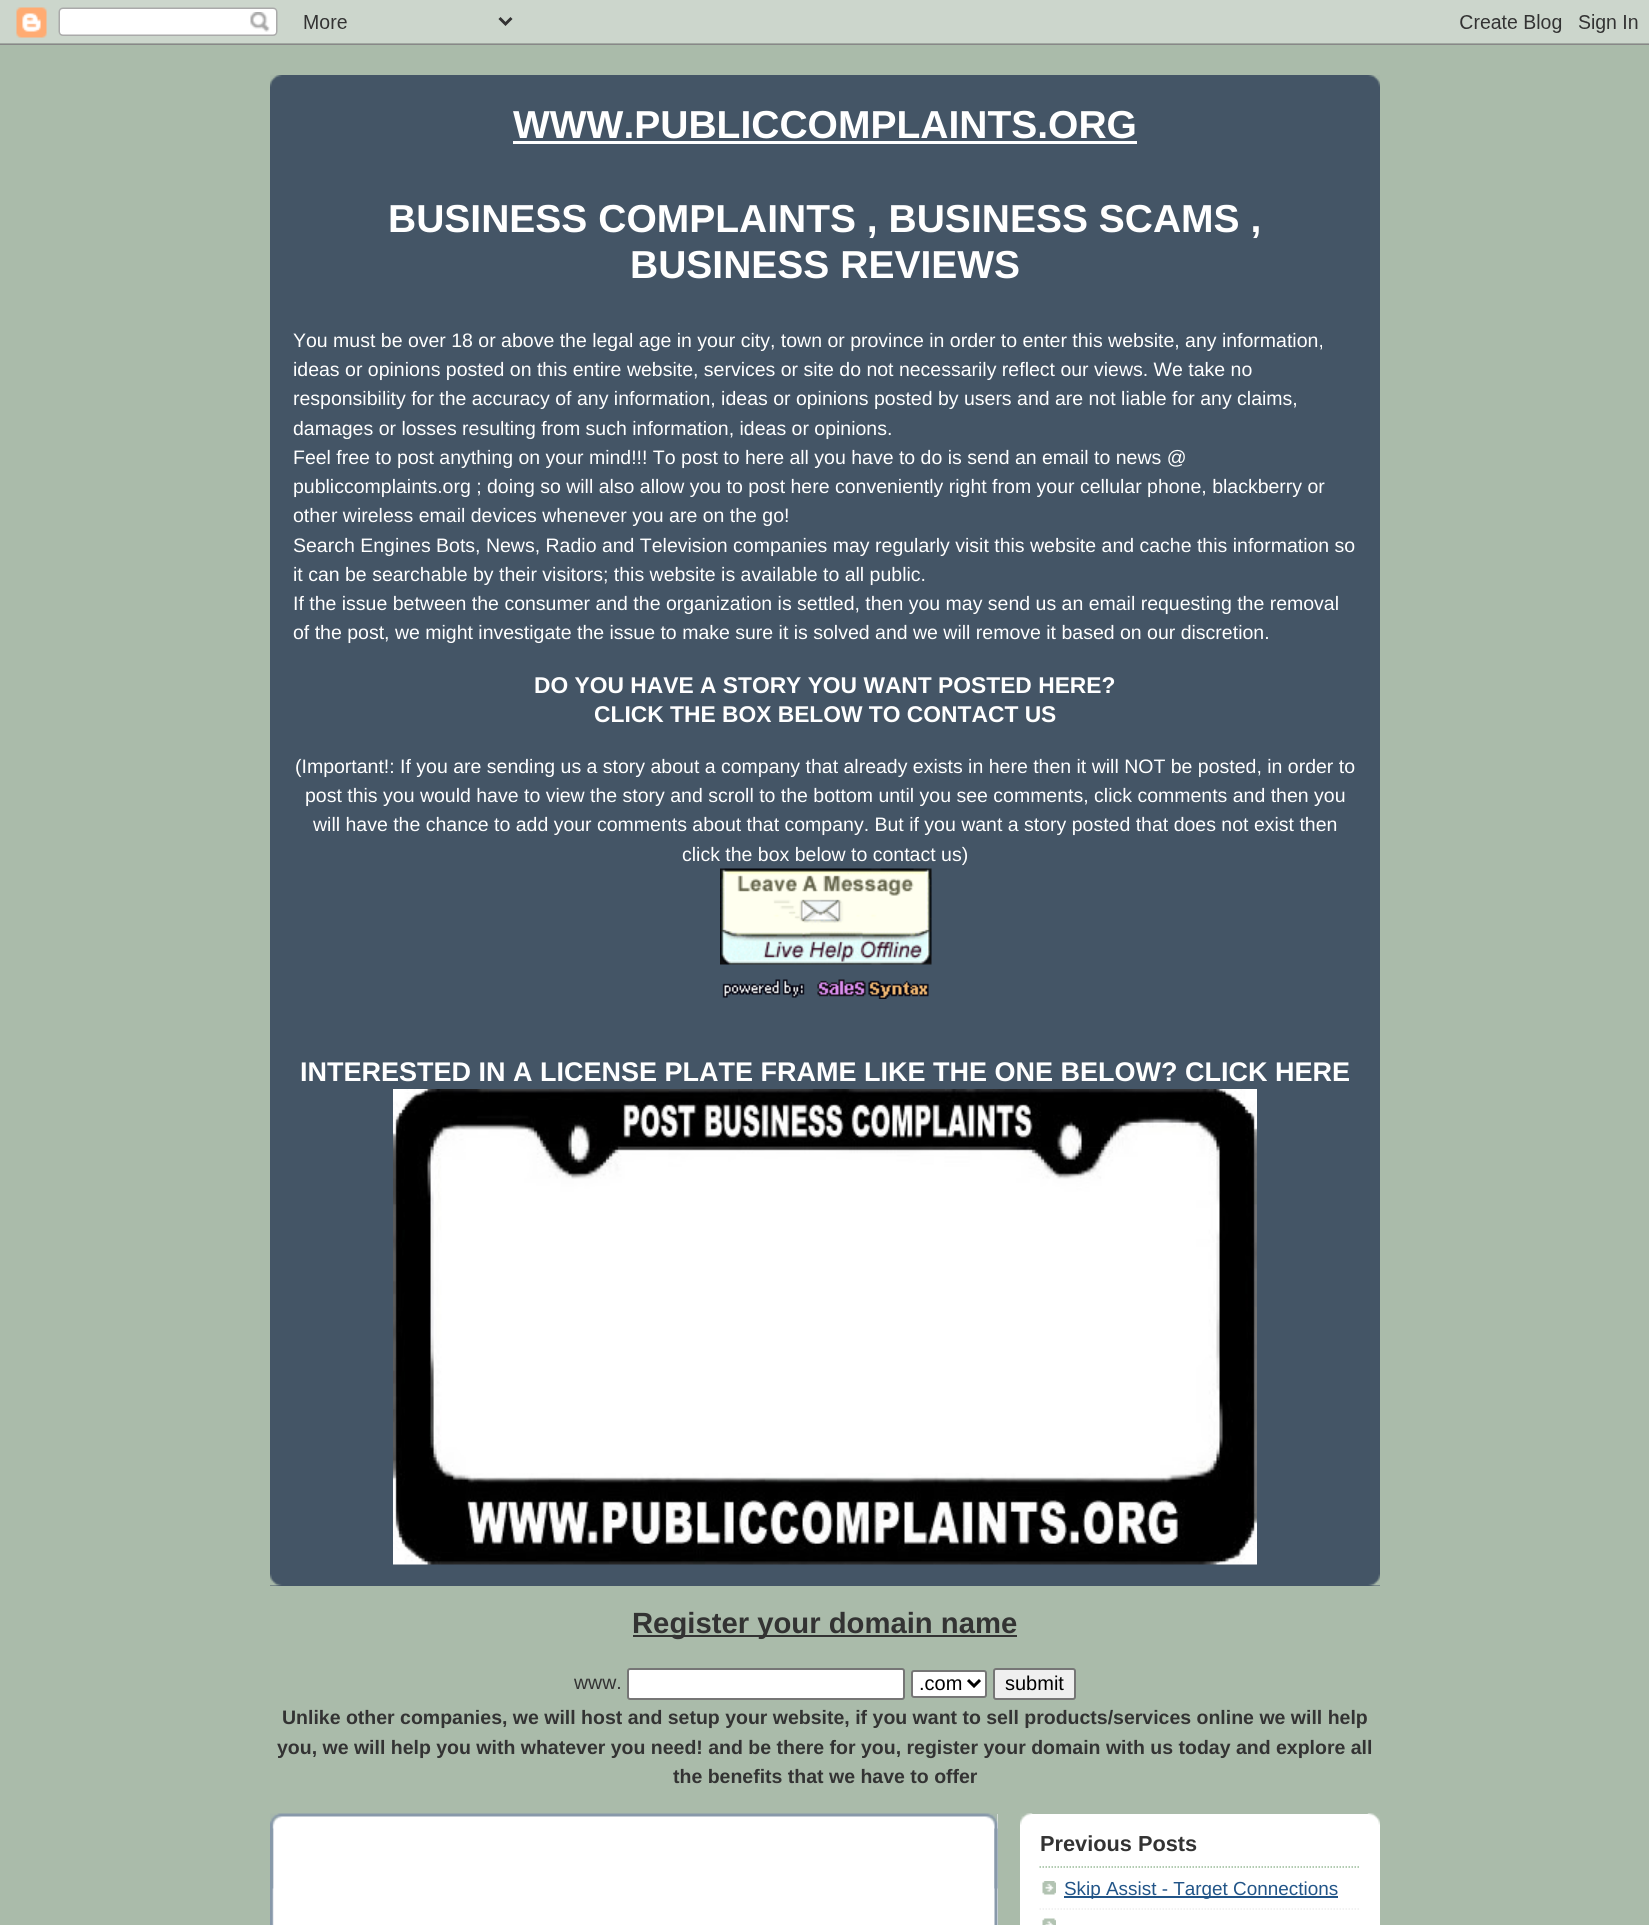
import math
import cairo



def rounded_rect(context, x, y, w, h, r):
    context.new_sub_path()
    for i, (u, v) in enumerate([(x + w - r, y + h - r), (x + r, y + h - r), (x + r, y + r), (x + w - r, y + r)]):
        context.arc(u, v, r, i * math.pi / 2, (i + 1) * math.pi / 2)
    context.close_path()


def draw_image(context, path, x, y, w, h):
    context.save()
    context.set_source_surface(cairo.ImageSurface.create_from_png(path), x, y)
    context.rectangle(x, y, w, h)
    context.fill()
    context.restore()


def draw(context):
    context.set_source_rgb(170 / 255, 187 / 255, 170 / 255)
    context.paint()
    draw_image(context, "images/1.png", 0, 0, 1649, 45)
    context.set_source_rgb(68 / 255, 85 / 255, 102 / 255)
    context.rectangle(270, 75, 1110, 1511)
    context.fill()
    draw_image(context, "images/2.png", 270, 75, 1110, 12)
    draw_image(context, "images/3.png", 270, 1574, 1110, 12)
    context.set_source_rgb(1, 1, 1)
    context.rectangle(513, 141, 624, 3)
    context.fill()
    draw_image(context, "images/4.png", 720, 868, 212, 97)
    draw_image(context, "images/5.png", 722, 979, 207, 20)
    draw_image(context, "images/6.png", 393, 1089, 864, 476)
    context.set_source_rgb(51 / 255, 51 / 255, 51 / 255)
    context.rectangle(633, 1635, 384, 2)
    context.fill()
    context.set_source_rgb(1, 1, 1)
    rounded_rect(context, 628, 1669, 276, 30, 2)
    context.fill_preserve()
    context.set_source_rgb(118 / 255, 118 / 255, 118 / 255)
    context.stroke()
    context.set_source_rgb(1, 1, 1)
    rounded_rect(context, 912, 1671, 74, 26, 2)
    context.fill_preserve()
    context.set_source_rgb(118 / 255, 118 / 255, 118 / 255)
    context.stroke()
    context.new_path()
    context.move_to(968, 1680)
    context.line_to(974, 1686)
    context.line_to(980, 1680)
    context.set_source_rgb(0, 0, 0)
    context.set_line_width(3)
    context.stroke()
    context.set_source_rgb(239 / 255, 239 / 255, 239 / 255)
    rounded_rect(context, 994, 1669, 81, 30, 2)
    context.fill_preserve()
    context.set_source_rgb(118 / 255, 118 / 255, 118 / 255)
    context.set_line_width(2)
    context.stroke()
    context.set_source_rgb(1, 1, 1)
    context.rectangle(272, 1814, 726, 111)
    context.fill()
    draw_image(context, "images/7.png", 270, 1813, 728, 76)
    draw_image(context, "images/8.png", 270, 1828, 728, 97)
    context.rectangle(1020, 1814, 360, 111)
    context.fill()
    draw_image(context, "images/9.png", 1020, 1813, 360, 12)
    context.new_path()
    context.move_to(1039.5, 1867)
    context.line_to(1360.5, 1867)
    context.set_source_rgb(153 / 255, 187 / 255, 153 / 255)
    context.set_line_width(1.5)
    context.set_dash([1.5, 1.5])
    context.stroke()
    draw_image(context, "images/10.png", 1042, 1881, 14, 14)
    context.new_path()
    context.move_to(1039.5, 1909)
    context.line_to(1360.5, 1909)
    context.set_source_rgb(238 / 255, 238 / 255, 238 / 255)
    context.stroke()
    context.set_source_rgb(34 / 255, 85 / 255, 136 / 255)
    context.rectangle(1064, 1896, 274, 2)
    context.fill()
    draw_image(context, "images/11.png", 1042, 1918, 14, 7)
    context.select_font_face("Liberation Sans", cairo.FontSlant.NORMAL, cairo.FontWeight.BOLD)
    context.set_font_size(39)
    context.set_source_rgb(1, 1, 1)
    context.move_to(513, 138)
    context.show_text("WWW.PUBLICCOMPLAINTS.ORG")
    context.move_to(388, 232)
    context.show_text("BUSINESS COMPLAINTS , BUSINESS SCAMS ,")
    context.move_to(630, 278)
    context.show_text("BUSINESS REVIEWS")
    context.select_font_face("Liberation Sans")
    context.set_font_size(19.5)
    context.move_to(293, 347)
    context.show_text("You must be over 18 or above the legal age in your city, town or province in order to enter this website, any information,")
    context.move_to(293, 376)
    context.show_text("ideas or opinions posted on this entire website, services or site do not necessarily reflect our views. We take no")
    context.move_to(293, 405)
    context.show_text("responsibility for the accuracy of any information, ideas or opinions posted by users and are not liable for any claims,")
    context.move_to(293, 435)
    context.show_text("damages or losses resulting from such information, ideas or opinions.")
    context.move_to(293, 464)
    context.show_text("Feel free to post anything on your mind!!! To post to here all you have to do is send an email to news @")
    context.move_to(293, 493)
    context.show_text("publiccomplaints.org ; doing so will also allow you to post here conveniently right from your cellular phone, blackberry or")
    context.move_to(293, 522)
    context.show_text("other wireless email devices whenever you are on the go!")
    context.move_to(293, 552)
    context.show_text("Search Engines Bots, News, Radio and Television companies may regularly visit this website and cache this information so")
    context.move_to(293, 581)
    context.show_text("it can be searchable by their visitors; this website is available to all public.")
    context.move_to(293, 610)
    context.show_text("If the issue between the consumer and the organization is settled, then you may send us an email requesting the removal")
    context.move_to(293, 639)
    context.show_text("of the post, we might investigate the issue to make sure it is solved and we will remove it based on our discretion.")
    context.select_font_face("Liberation Sans", cairo.FontSlant.NORMAL, cairo.FontWeight.BOLD)
    context.set_font_size(22.8)
    context.move_to(534, 693)
    context.show_text("DO YOU HAVE A STORY YOU WANT POSTED HERE?")
    context.move_to(594, 722)
    context.show_text("CLICK THE BOX BELOW TO CONTACT US")
    context.select_font_face("Liberation Sans")
    context.set_font_size(19.5)
    context.move_to(295, 773)
    context.show_text("(Important!: If you are sending us a story about a company that already exists in here then it will NOT be posted, in order to")
    context.move_to(305, 802)
    context.show_text("post this you would have to view the story and scroll to the bottom until you see comments, click comments and then you")
    context.move_to(313, 831)
    context.show_text("will have the chance to add your comments about that company. But if you want a story posted that does not exist then")
    context.move_to(682, 861)
    context.show_text("click the box below to contact us)")
    context.select_font_face("Liberation Sans", cairo.FontSlant.NORMAL, cairo.FontWeight.BOLD)
    context.set_font_size(27)
    context.move_to(300, 1081)
    context.show_text("INTERESTED IN A LICENSE PLATE FRAME LIKE THE ONE BELOW? CLICK HERE")
    context.set_font_size(29.25)
    context.set_source_rgb(51 / 255, 51 / 255, 51 / 255)
    context.move_to(632, 1633)
    context.show_text("Register your domain name")
    context.select_font_face("Liberation Sans")
    context.set_font_size(19.5)
    context.move_to(574, 1689)
    context.show_text("www.")
    context.set_font_size(20)
    context.set_source_rgb(0, 0, 0)
    context.move_to(919, 1690)
    context.show_text(".com")
    context.move_to(1005, 1690)
    context.show_text("submit")
    context.select_font_face("Liberation Sans", cairo.FontSlant.NORMAL, cairo.FontWeight.BOLD)
    context.set_font_size(19.5)
    context.set_source_rgb(51 / 255, 51 / 255, 51 / 255)
    context.move_to(282, 1724)
    context.show_text("Unlike other companies, we will host and setup your website, if you want to sell products/services online we will help")
    context.move_to(277, 1754)
    context.show_text("you, we will help you with whatever you need! and be there for you, register your domain with us today and explore all")
    context.move_to(673, 1783)
    context.show_text("the benefits that we have to offer")
    context.set_font_size(21.75)
    context.move_to(1040, 1851)
    context.show_text("Previous Posts")
    context.select_font_face("Liberation Sans")
    context.set_font_size(18.9)
    context.set_source_rgb(34 / 255, 85 / 255, 136 / 255)
    context.move_to(1064, 1895)
    context.show_text("Skip Assist - Target Connections")


surface = cairo.ImageSurface(cairo.Format.RGB24, 1649, 1925)
context = cairo.Context(surface)
options = cairo.FontOptions()
options.set_hint_metrics(cairo.HintMetrics.OFF)
options.set_hint_style(cairo.HintStyle.NONE)
context.set_font_options(options)
context.set_miter_limit(4)
draw(context)
surface.write_to_png("out.png")
